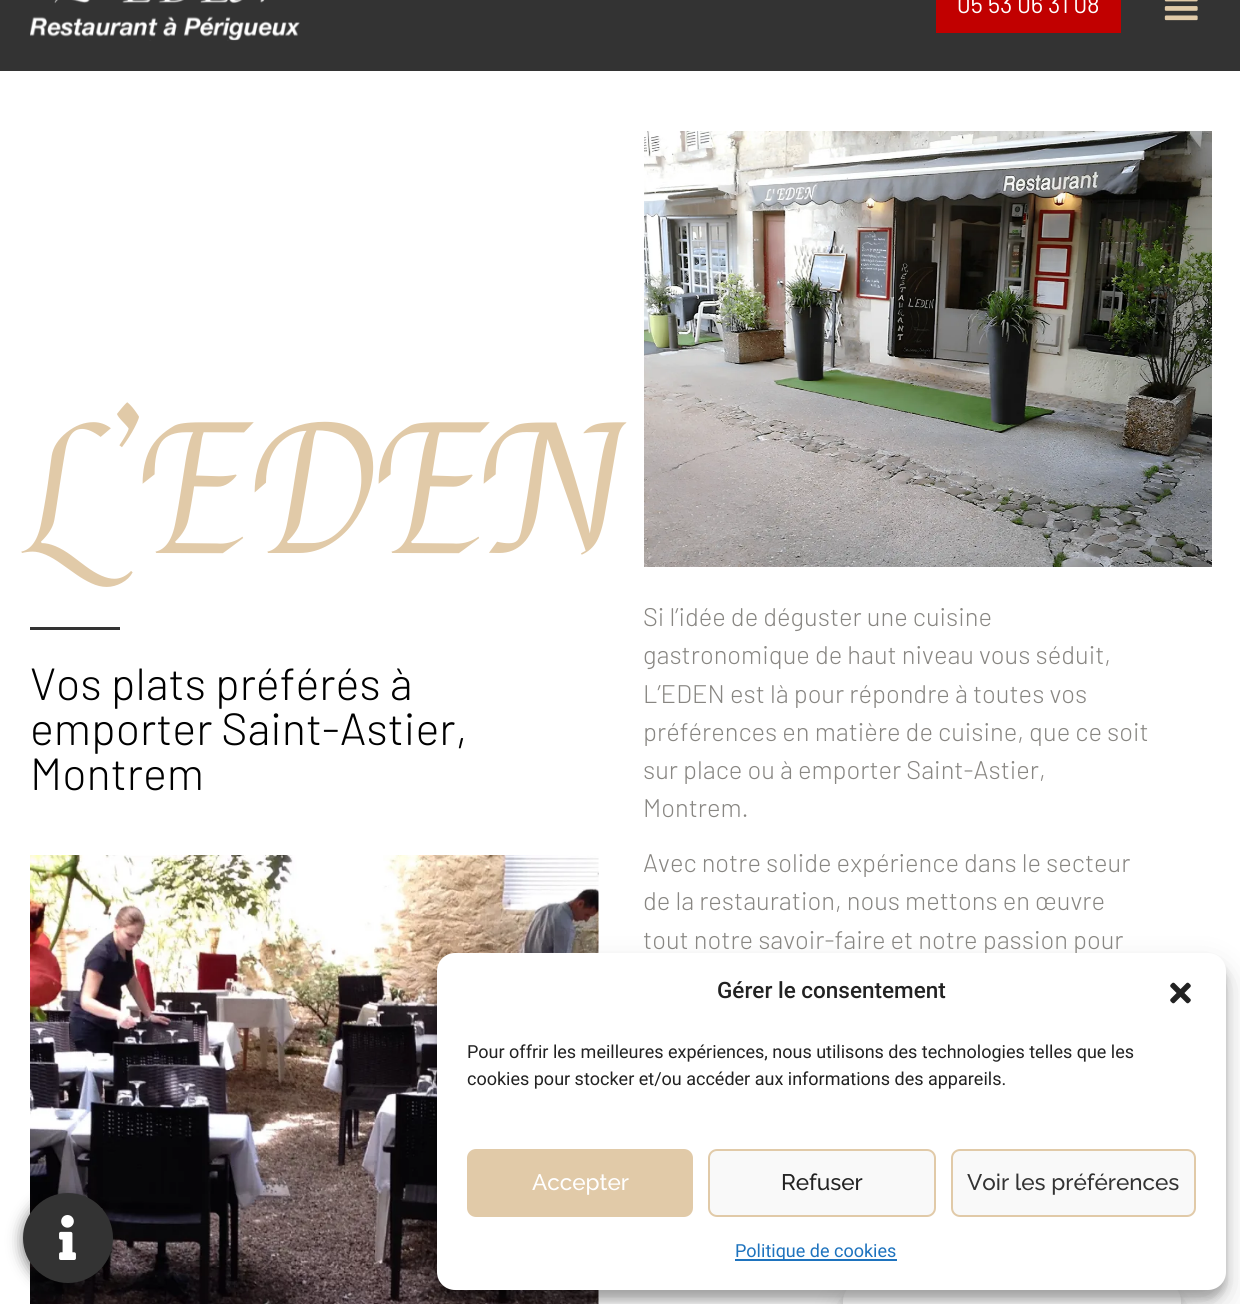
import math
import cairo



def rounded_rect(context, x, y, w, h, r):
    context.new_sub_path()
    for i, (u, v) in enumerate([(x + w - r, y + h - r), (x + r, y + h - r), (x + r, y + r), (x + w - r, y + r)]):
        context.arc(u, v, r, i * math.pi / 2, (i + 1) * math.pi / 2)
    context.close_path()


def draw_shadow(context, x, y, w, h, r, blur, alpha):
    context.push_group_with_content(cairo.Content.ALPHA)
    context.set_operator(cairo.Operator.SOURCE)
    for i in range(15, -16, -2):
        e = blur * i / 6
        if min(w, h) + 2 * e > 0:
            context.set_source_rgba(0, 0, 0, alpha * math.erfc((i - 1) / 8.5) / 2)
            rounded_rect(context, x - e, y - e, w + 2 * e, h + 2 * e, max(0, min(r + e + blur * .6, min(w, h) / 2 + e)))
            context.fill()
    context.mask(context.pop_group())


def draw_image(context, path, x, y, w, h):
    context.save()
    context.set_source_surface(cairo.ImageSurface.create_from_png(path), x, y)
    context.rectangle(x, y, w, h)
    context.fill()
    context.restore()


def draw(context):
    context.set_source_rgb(1, 1, 1)
    context.paint()
    context.set_source_rgb(51 / 255, 51 / 255, 51 / 255)
    context.rectangle(0, 0, 1240, 71)
    context.fill()
    draw_image(context, "images/1.png", 30, 0, 270, 41)
    context.set_source_rgb(193 / 255, 0, 0)
    context.rectangle(936, 0, 185, 33)
    context.fill()
    draw_image(context, "images/2.png", 1164, 0, 34, 21)
    context.set_source_rgb(51 / 255, 51 / 255, 51 / 255)
    context.rectangle(30, 627, 90, 3)
    context.fill()
    draw_image(context, "images/3.png", 30, 855, 569, 449)
    draw_image(context, "images/4.png", 644, 131, 568, 436)
    context.set_source_rgb(0, 0, 0)
    draw_shadow(context, 23, 1196, 90, 90, 45, 7.5, 0.56)
    context.set_source_rgb(51 / 255, 51 / 255, 51 / 255)
    context.arc(68, 1238, 45, 0, 2 * math.pi)
    context.fill()
    draw_image(context, "images/5.png", 59, 1215, 17, 45)
    context.set_source_rgb(0, 0, 0)
    draw_shadow(context, 843, 1292, 338, 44, 18, 4.5, 0.23)
    draw_shadow(context, 843, 1298, 338, 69, 18, 15, 0.19)
    context.set_source_rgb(1, 1, 1)
    context.new_path()
    context.move_to(861, 1283)
    context.line_to(1163, 1283)
    context.curve_to(1173, 1283, 1181, 1291, 1181, 1301)
    context.line_to(1181, 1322)
    context.line_to(843, 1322)
    context.line_to(843, 1301)
    context.curve_to(843, 1291, 851, 1283, 861, 1283)
    context.close_path()
    context.fill()
    context.set_source_rgb(0, 0, 0)
    draw_shadow(context, 437, 962, 789, 337, 18, 4.5, 0.23)
    draw_shadow(context, 437, 968, 789, 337, 18, 15, 0.19)
    context.select_font_face("Barlow")
    context.set_font_size(24)
    context.set_source_rgb(1, 1, 1)
    context.move_to(957, 13)
    context.show_text("05 53 06 31 08")
    context.select_font_face("Felipa")
    context.set_font_size(174)
    context.set_source_rgb(225 / 255, 202 / 255, 168 / 255)
    context.move_to(30, 553)
    context.show_text("L’EDEN")
    context.select_font_face("Barlow Light")
    context.set_font_size(45)
    context.set_source_rgb(0, 0, 0)
    context.move_to(30, 700)
    context.show_text("Vos plats préférés à")
    context.move_to(30, 745)
    context.show_text("emporter Saint-Astier,")
    context.move_to(30, 790)
    context.show_text("Montrem")
    context.set_font_size(25.5)
    context.set_source_rgb(136 / 255, 134 / 255, 130 / 255)
    context.move_to(643, 626)
    context.show_text("Si l’idée de déguster une cuisine")
    context.move_to(643, 664)
    context.show_text("gastronomique de haut niveau vous séduit,")
    context.move_to(643, 703)
    context.show_text("L’EDEN est là pour répondre à toutes vos")
    context.move_to(643, 741)
    context.show_text("préférences en matière de cuisine, que ce soit")
    context.move_to(643, 779)
    context.show_text("sur place ou à emporter Saint-Astier,")
    context.move_to(643, 817)
    context.show_text("Montrem.")
    context.move_to(643, 872)
    context.show_text("Avec notre solide expérience dans le secteur")
    context.move_to(643, 910)
    context.show_text("de la restauration, nous mettons en œuvre")
    context.move_to(643, 949)
    context.show_text("tout notre savoir-faire et notre passion pour")
    context.set_source_rgb(1, 1, 1)
    rounded_rect(context, 437, 953, 789, 337, 18)
    context.fill()
    context.select_font_face("Roboto Medium")
    context.set_font_size(22.5)
    context.set_source_rgb(34 / 255, 34 / 255, 34 / 255)
    context.move_to(717, 998)
    context.show_text("Gérer le consentement")
    draw_image(context, "images/6.png", 1170, 982, 21, 22)
    context.select_font_face("Roboto")
    context.set_font_size(18)
    context.move_to(467, 1058)
    context.show_text("Pour offrir les meilleures expériences, nous utilisons des technologies telles que les")
    context.move_to(467, 1085)
    context.show_text("cookies pour stocker et/ou accéder aux informations des appareils.")
    context.set_source_rgb(225 / 255, 202 / 255, 168 / 255)
    rounded_rect(context, 468, 1150, 224, 66, 8)
    context.fill_preserve()
    context.stroke()
    context.select_font_face("Raleway Medium")
    context.set_font_size(22.5)
    context.set_source_rgb(1, 1, 1)
    context.move_to(532, 1190)
    context.show_text("Accepter")
    context.set_source_rgb(249 / 255, 249 / 255, 249 / 255)
    rounded_rect(context, 709, 1150, 226, 66, 8)
    context.fill_preserve()
    context.set_source_rgb(225 / 255, 202 / 255, 168 / 255)
    context.stroke()
    context.set_source_rgb(34 / 255, 34 / 255, 34 / 255)
    context.move_to(781, 1190)
    context.show_text("Refuser")
    context.set_source_rgb(249 / 255, 249 / 255, 249 / 255)
    rounded_rect(context, 952, 1150, 243, 66, 8)
    context.fill_preserve()
    context.set_source_rgb(225 / 255, 202 / 255, 168 / 255)
    context.stroke()
    context.set_source_rgb(51 / 255, 51 / 255, 51 / 255)
    context.move_to(967, 1190)
    context.show_text("Voir les préférences")
    context.set_source_rgb(30 / 255, 115 / 255, 190 / 255)
    context.rectangle(735, 1259, 162, 2)
    context.fill()
    context.select_font_face("Roboto")
    context.set_font_size(18)
    context.move_to(735, 1257)
    context.show_text("Politique de cookies")


surface = cairo.ImageSurface(cairo.Format.RGB24, 1240, 1304)
context = cairo.Context(surface)
options = cairo.FontOptions()
options.set_hint_metrics(cairo.HintMetrics.OFF)
options.set_hint_style(cairo.HintStyle.NONE)
context.set_font_options(options)
context.set_miter_limit(4)
draw(context)
surface.write_to_png("out.png")
